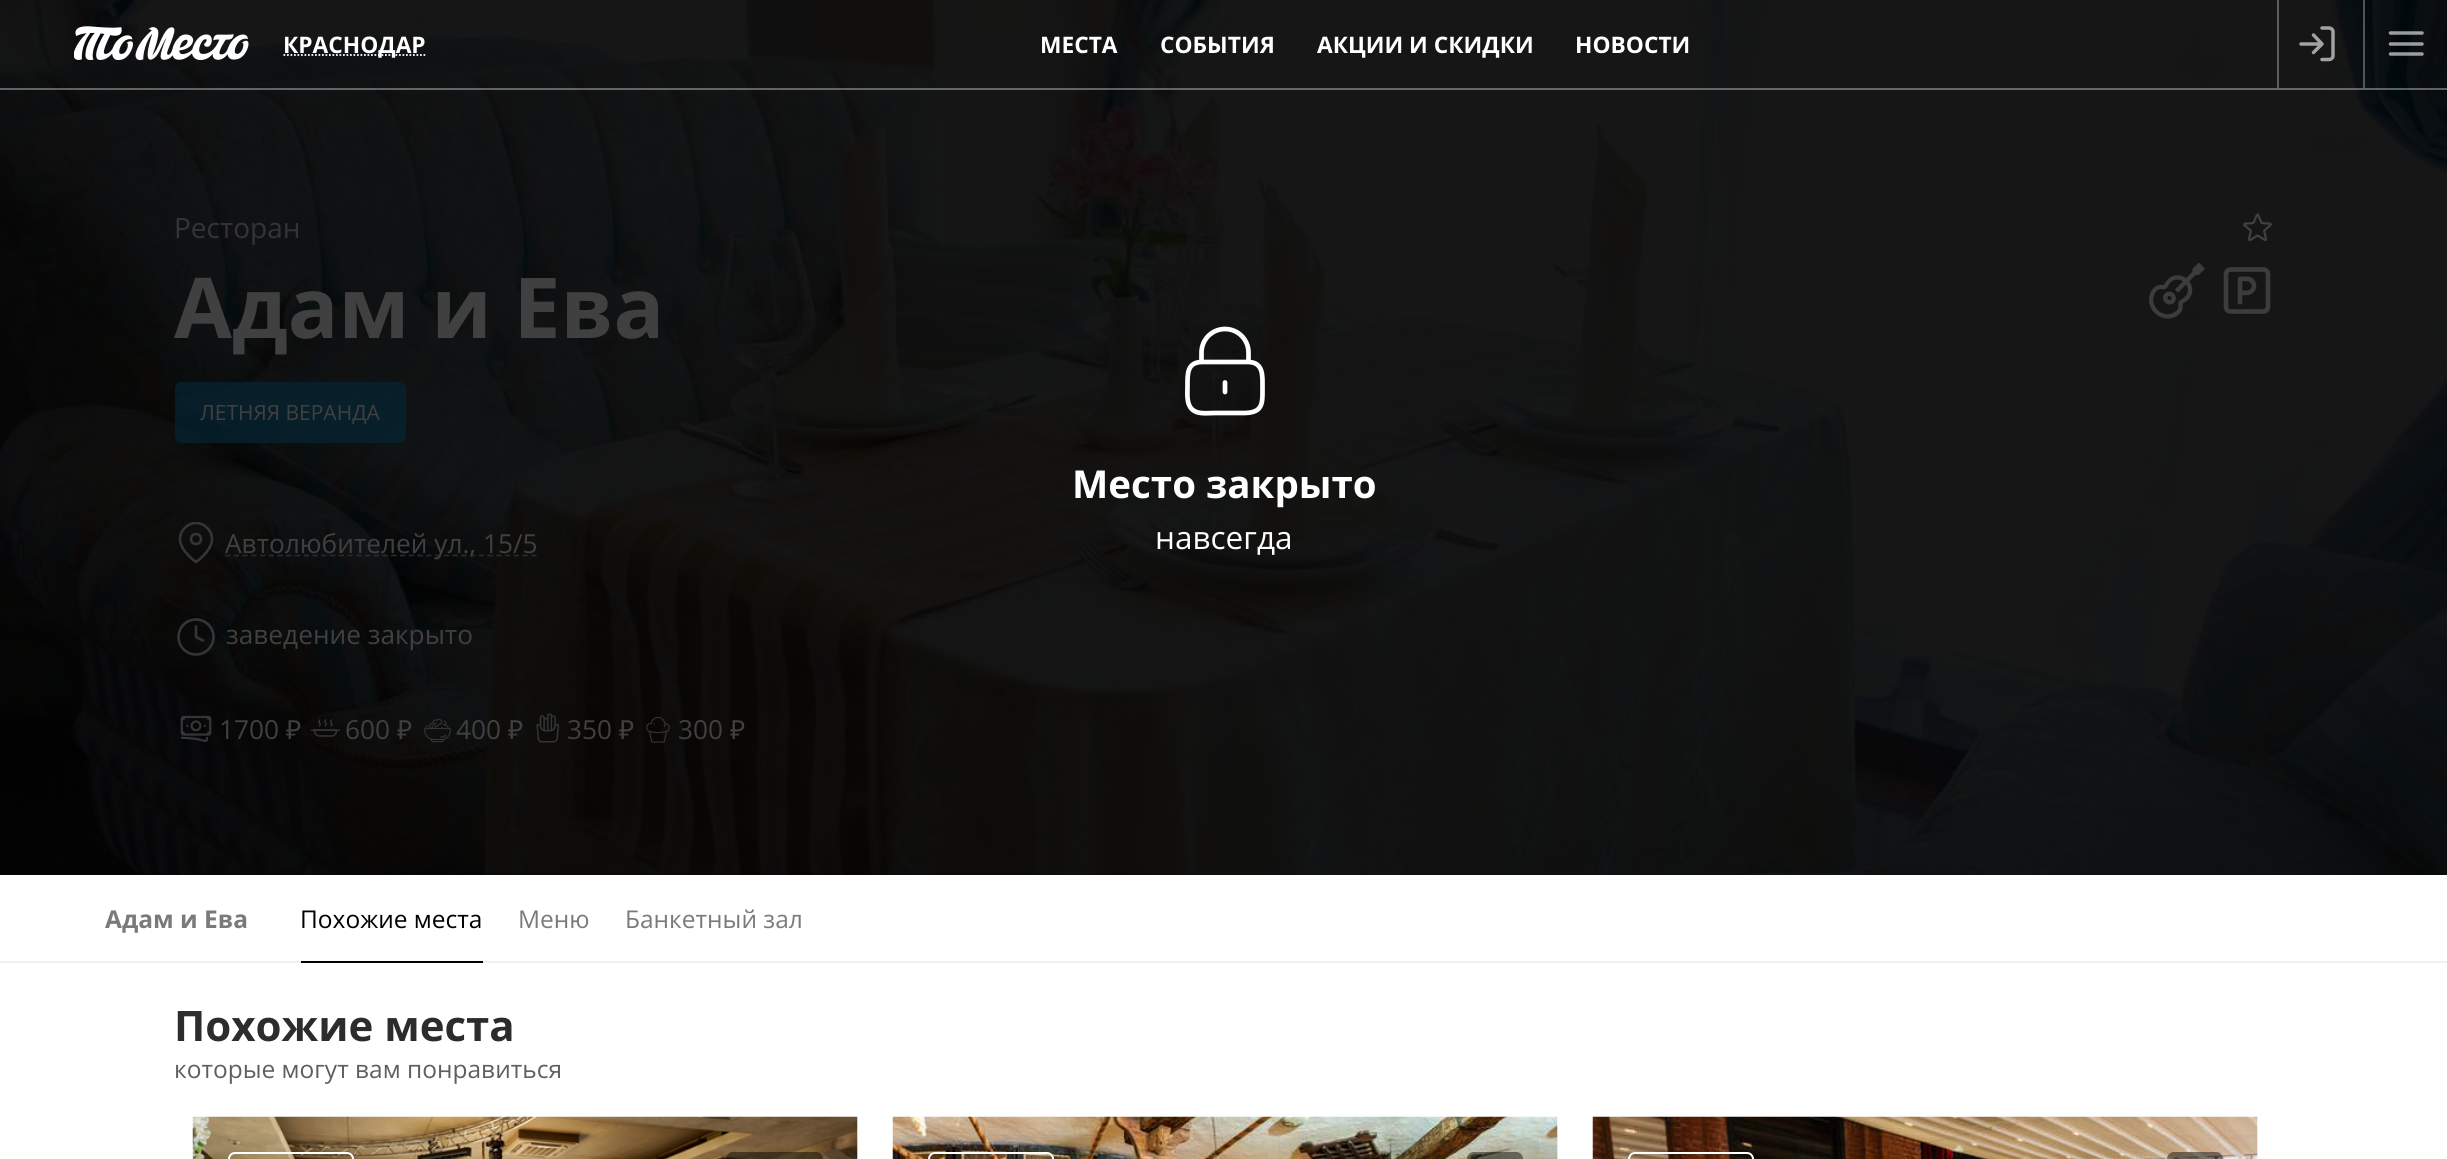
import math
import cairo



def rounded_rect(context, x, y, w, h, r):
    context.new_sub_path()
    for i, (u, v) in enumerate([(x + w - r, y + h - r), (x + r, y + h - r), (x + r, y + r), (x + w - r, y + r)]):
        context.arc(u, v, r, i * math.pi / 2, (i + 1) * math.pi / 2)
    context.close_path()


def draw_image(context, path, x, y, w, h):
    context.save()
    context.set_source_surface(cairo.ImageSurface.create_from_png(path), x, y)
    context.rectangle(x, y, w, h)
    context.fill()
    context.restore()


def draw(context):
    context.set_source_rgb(1, 1, 1)
    context.paint()
    context.set_source_rgb(0, 0, 0)
    context.rectangle(0, 0, 2447, 875)
    context.fill()
    draw_image(context, "images/2.png", 0, 0, 2447, 875)
    context.set_source_rgba(1, 1, 1, 0.35)
    context.rectangle(0, 88, 2447, 2)
    context.fill()
    draw_image(context, "images/1.png", 74, 26, 175, 34)
    context.new_path()
    context.move_to(283.5, 55)
    context.line_to(426, 55)
    context.set_source_rgb(1, 1, 1)
    context.set_line_width(1.8)
    context.set_dash([1.75, 1.75])
    context.stroke()
    context.set_source_rgba(1, 1, 1, 0.3)
    context.rectangle(2363, 0, 2, 88)
    context.fill()
    context.set_source_rgb(92 / 255, 92 / 255, 92 / 255)
    context.rectangle(2277, 0, 2, 88)
    context.fill()
    context.new_path()
    context.move_to(2322, 28)
    context.line_to(2329, 28)
    context.curve_to(2331, 28, 2333, 29.5, 2333, 31.5)
    context.line_to(2333, 56)
    context.curve_to(2333, 58, 2331, 59.5, 2329, 59.5)
    context.line_to(2322, 59.5)
    context.move_to(2313.5, 52.5)
    context.line_to(2322, 44)
    context.line_to(2313.5, 35)
    context.move_to(2322, 44)
    context.line_to(2301, 44)
    context.set_source_rgb(162 / 255, 162 / 255, 162 / 255)
    context.set_line_width(3.5)
    context.set_line_cap(cairo.LineCap.ROUND)
    context.set_line_join(cairo.LineJoin.ROUND)
    context.set_dash([])
    context.stroke()
    context.new_path()
    context.move_to(2390.5, 44)
    context.line_to(2422, 44)
    context.move_to(2390.5, 33)
    context.line_to(2422, 33)
    context.move_to(2390.5, 54)
    context.line_to(2422, 54)
    context.set_source_rgba(1, 1, 1, 0.6)
    context.stroke()
    draw_image(context, "images/3.png", 2243, 213, 29, 29)
    draw_image(context, "images/4.png", 2149, 263, 56, 56)
    draw_image(context, "images/5.png", 2223, 267, 48, 47)
    context.set_source_rgba(4 / 255, 41 / 255, 58 / 255, 0.6)
    rounded_rect(context, 175, 382, 231, 61, 7)
    context.fill()
    context.new_path()
    context.move_to(1225, 382.5)
    context.line_to(1225, 392)
    context.move_to(1201.5, 362)
    context.line_to(1248.5, 362)
    context.move_to(1201.5, 362)
    context.curve_to(1187, 362.5, 1187.5, 374, 1187.5, 385.5)
    context.curve_to(1187.5, 394.5, 1185.5, 408, 1196.5, 412)
    context.curve_to(1202, 414, 1209.5, 413, 1215, 413)
    context.line_to(1245, 413)
    context.curve_to(1263.5, 412.5, 1262.5, 402.5, 1262.5, 387.5)
    context.curve_to(1262.5, 375.5, 1263.5, 362.5, 1248.5, 362)
    context.move_to(1201.5, 362)
    context.line_to(1201.5, 352.5)
    context.curve_to(1201.5, 339.5, 1212, 329, 1225, 329)
    context.curve_to(1238, 329, 1248.5, 339.5, 1248.5, 352.5)
    context.line_to(1248.5, 362)
    context.set_source_rgb(1, 1, 1)
    context.set_line_width(4.7)
    context.stroke()
    context.save()
    context.rectangle(175, 522, 42, 42)
    context.clip()
    context.new_path()
    context.move_to(212, 539)
    context.curve_to(212, 551, 196, 562, 196, 562)
    context.curve_to(196, 562, 180, 551, 180, 539)
    context.curve_to(180, 530.5, 187.5, 523, 196, 523)
    context.curve_to(204.5, 523, 212, 530.5, 212, 539)
    context.set_source_rgb(52 / 255, 53 / 255, 55 / 255)
    context.set_line_width(2.6)
    context.stroke()
    context.restore()
    context.arc(196, 539, 5, 0, 2 * math.pi)
    context.set_source_rgb(52 / 255, 53 / 255, 55 / 255)
    context.set_line_width(2.6)
    context.set_line_cap(cairo.LineCap.BUTT)
    context.set_line_join(cairo.LineJoin.MITER)
    context.stroke()
    context.new_path()
    context.move_to(225, 555.5)
    context.line_to(537.5, 555.5)
    context.set_source_rgb(39 / 255, 41 / 255, 44 / 255)
    context.set_line_width(1.8)
    context.set_dash([5.25, 3.5])
    context.stroke()
    context.arc(196, 637, 17.5, 0, 2 * math.pi)
    context.set_source_rgb(52 / 255, 53 / 255, 55 / 255)
    context.set_line_width(2.6)
    context.set_dash([])
    context.stroke()
    context.new_path()
    context.move_to(196, 626.5)
    context.line_to(196, 637)
    context.line_to(203, 640.5)
    context.set_line_cap(cairo.LineCap.ROUND)
    context.set_line_join(cairo.LineJoin.ROUND)
    context.stroke()
    draw_image(context, "images/6.png", 180, 715, 32, 27)
    draw_image(context, "images/7.png", 311, 719, 29, 18)
    draw_image(context, "images/8.png", 424, 718, 27, 25)
    draw_image(context, "images/9.png", 536, 713, 24, 30)
    draw_image(context, "images/10.png", 646, 717, 24, 26)
    context.set_source_rgb(239 / 255, 240 / 255, 240 / 255)
    context.rectangle(0, 961, 2447, 2)
    context.fill()
    context.set_source_rgb(0, 0, 0)
    context.rectangle(301, 961, 182, 2)
    context.fill()
    draw_image(context, "images/11.png", 192, 1116, 666, 43)
    gradient = cairo.LinearGradient(525, 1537, 525, 1117)
    gradient.add_color_stop_rgba(0, 0, 0, 0, 0.5)
    gradient.add_color_stop_rgba(1, 0, 0, 0, 0)
    context.set_source(gradient)
    context.rectangle(193, 1135, 665, 24)
    context.fill()
    rounded_rect(context, 229, 1153, 124, 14, 6)
    context.set_source_rgb(1, 1, 1)
    context.set_line_width(2)
    context.set_line_cap(cairo.LineCap.BUTT)
    context.set_line_join(cairo.LineJoin.MITER)
    context.stroke()
    context.set_source_rgba(0, 0, 0, 0.45)
    rounded_rect(context, 726, 1152, 97, 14, 7)
    context.fill()
    draw_image(context, "images/12.png", 892, 1116, 666, 43)
    gradient = cairo.LinearGradient(1225, 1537, 1225, 1117)
    gradient.add_color_stop_rgba(0, 0, 0, 0, 0.5)
    gradient.add_color_stop_rgba(1, 0, 0, 0, 0)
    context.set_source(gradient)
    context.rectangle(893, 1135, 665, 24)
    context.fill()
    rounded_rect(context, 929, 1153, 124, 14, 6)
    context.set_source_rgb(1, 1, 1)
    context.stroke()
    context.set_source_rgba(0, 0, 0, 0.45)
    rounded_rect(context, 1467, 1152, 56, 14, 7)
    context.fill()
    draw_image(context, "images/13.png", 1592, 1116, 666, 43)
    gradient = cairo.LinearGradient(1925, 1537, 1925, 1117)
    gradient.add_color_stop_rgba(0, 0, 0, 0, 0.5)
    gradient.add_color_stop_rgba(1, 0, 0, 0, 0)
    context.set_source(gradient)
    context.rectangle(1593, 1135, 665, 24)
    context.fill()
    rounded_rect(context, 1629, 1153, 124, 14, 6)
    context.set_source_rgb(1, 1, 1)
    context.stroke()
    context.set_source_rgba(0, 0, 0, 0.45)
    rounded_rect(context, 2167, 1152, 56, 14, 7)
    context.fill()
    context.select_font_face("Open Sans", cairo.FontSlant.NORMAL, cairo.FontWeight.BOLD)
    context.set_font_size(22.75)
    context.set_source_rgb(1, 1, 1)
    context.move_to(283, 53)
    context.show_text("КРАСНОДАР")
    context.move_to(1040, 53)
    context.show_text("МЕСТА")
    context.move_to(1160, 53)
    context.show_text("СОБЫТИЯ")
    context.move_to(1317, 53)
    context.show_text("АКЦИИ И СКИДКИ")
    context.move_to(1575, 53)
    context.show_text("НОВОСТИ")
    context.select_font_face("Open Sans")
    context.set_font_size(28)
    context.set_source_rgb(52 / 255, 52 / 255, 53 / 255)
    context.move_to(174, 238)
    context.show_text("Ресторан")
    context.select_font_face("Open Sans", cairo.FontSlant.NORMAL, cairo.FontWeight.BOLD)
    context.set_font_size(84)
    context.set_source_rgb(64 / 255, 64 / 255, 64 / 255)
    context.move_to(174, 338)
    context.show_text("Адам и Ева")
    context.select_font_face("Open Sans")
    context.set_font_size(21)
    context.move_to(200, 420)
    context.show_text("ЛЕТНЯЯ ВЕРАНДА")
    context.select_font_face("Open Sans", cairo.FontSlant.NORMAL, cairo.FontWeight.BOLD)
    context.set_font_size(38.5)
    context.set_source_rgb(1, 1, 1)
    context.move_to(1072, 498)
    context.show_text("Место закрыто")
    context.select_font_face("Open Sans")
    context.set_font_size(31.5)
    context.move_to(1155, 549)
    context.show_text("навсегда")
    context.set_font_size(26.25)
    context.set_source_rgb(64 / 255, 64 / 255, 64 / 255)
    context.move_to(225, 553)
    context.show_text("Автолюбителей ул., 15/5")
    context.move_to(226, 644)
    context.show_text("заведение закрыто")
    context.move_to(219, 739)
    context.show_text("1700")
    context.select_font_face("Noto Sans")
    context.move_to(286, 739)
    context.show_text("₽")
    context.select_font_face("Open Sans")
    context.move_to(345, 739)
    context.show_text("600")
    context.select_font_face("Noto Sans")
    context.move_to(397, 739)
    context.show_text("₽")
    context.select_font_face("Open Sans")
    context.move_to(456, 739)
    context.show_text("400")
    context.select_font_face("Noto Sans")
    context.move_to(508, 739)
    context.show_text("₽")
    context.select_font_face("Open Sans")
    context.move_to(567, 739)
    context.show_text("350")
    context.select_font_face("Noto Sans")
    context.move_to(619, 739)
    context.show_text("₽")
    context.select_font_face("Open Sans")
    context.move_to(678, 739)
    context.show_text("300")
    context.select_font_face("Noto Sans")
    context.move_to(730, 739)
    context.show_text("₽")
    context.select_font_face("Open Sans", cairo.FontSlant.NORMAL, cairo.FontWeight.BOLD)
    context.set_font_size(24.5)
    context.set_source_rgb(122 / 255, 122 / 255, 122 / 255)
    context.move_to(105, 928)
    context.show_text("Адам и Ева")
    context.select_font_face("Open Sans")
    context.set_source_rgb(0, 0, 0)
    context.move_to(300, 928)
    context.show_text("Похожие места")
    context.set_source_rgb(122 / 255, 122 / 255, 122 / 255)
    context.move_to(518, 928)
    context.show_text("Меню")
    context.move_to(625, 928)
    context.show_text("Банкетный зал")
    context.select_font_face("Open Sans", cairo.FontSlant.NORMAL, cairo.FontWeight.BOLD)
    context.set_font_size(42)
    context.set_source_rgb(44 / 255, 44 / 255, 44 / 255)
    context.move_to(174, 1041)
    context.show_text("Похожие места")
    context.select_font_face("Open Sans")
    context.set_font_size(24.5)
    context.set_source_rgb(95 / 255, 95 / 255, 95 / 255)
    context.move_to(174, 1078)
    context.show_text("которые могут вам понравиться")


surface = cairo.ImageSurface(cairo.Format.RGB24, 2447, 1159)
context = cairo.Context(surface)
options = cairo.FontOptions()
options.set_hint_metrics(cairo.HintMetrics.OFF)
options.set_hint_style(cairo.HintStyle.NONE)
context.set_font_options(options)
context.set_miter_limit(4)
draw(context)
surface.write_to_png("out.png")
